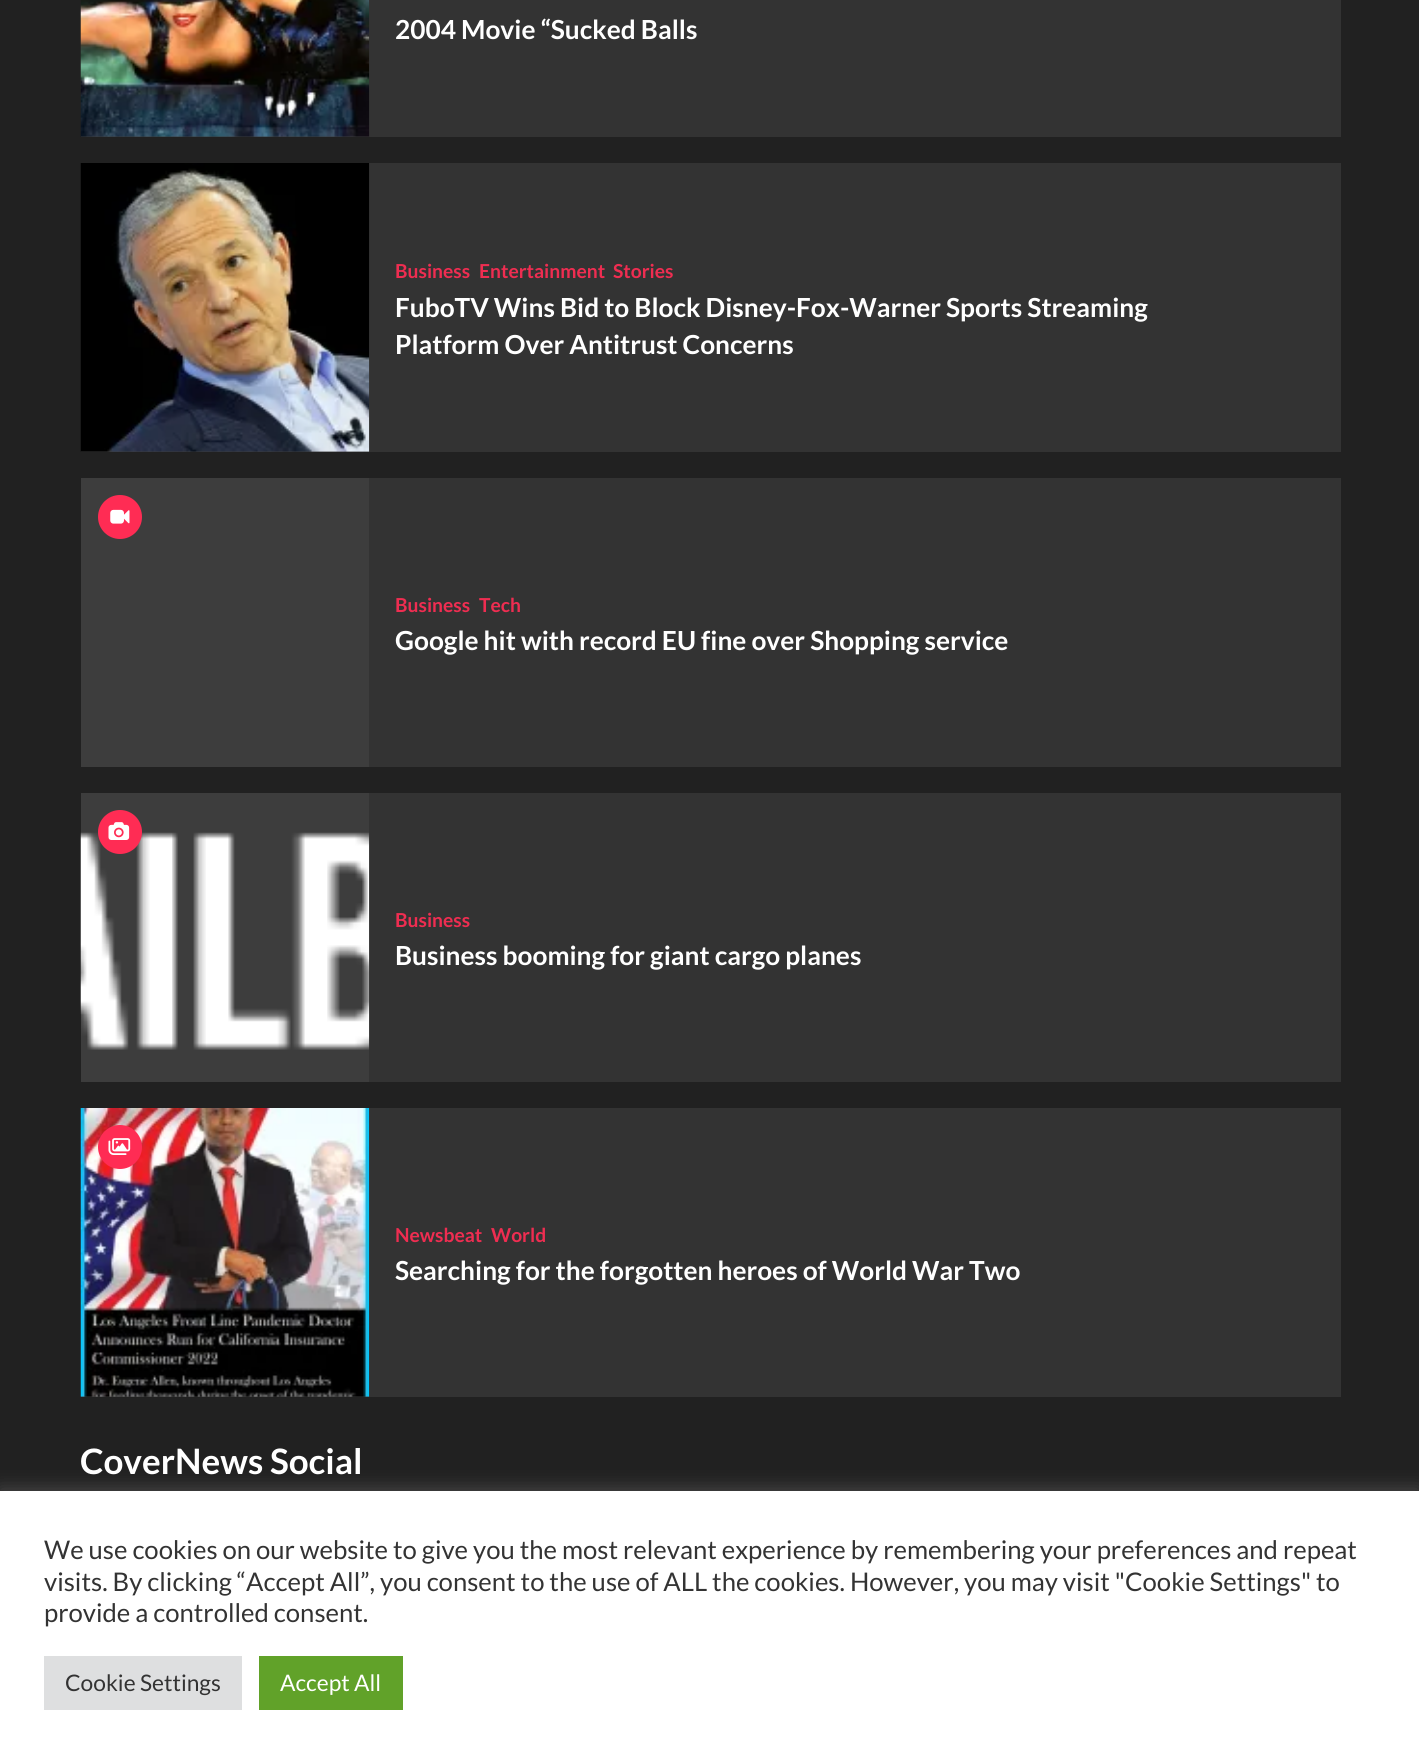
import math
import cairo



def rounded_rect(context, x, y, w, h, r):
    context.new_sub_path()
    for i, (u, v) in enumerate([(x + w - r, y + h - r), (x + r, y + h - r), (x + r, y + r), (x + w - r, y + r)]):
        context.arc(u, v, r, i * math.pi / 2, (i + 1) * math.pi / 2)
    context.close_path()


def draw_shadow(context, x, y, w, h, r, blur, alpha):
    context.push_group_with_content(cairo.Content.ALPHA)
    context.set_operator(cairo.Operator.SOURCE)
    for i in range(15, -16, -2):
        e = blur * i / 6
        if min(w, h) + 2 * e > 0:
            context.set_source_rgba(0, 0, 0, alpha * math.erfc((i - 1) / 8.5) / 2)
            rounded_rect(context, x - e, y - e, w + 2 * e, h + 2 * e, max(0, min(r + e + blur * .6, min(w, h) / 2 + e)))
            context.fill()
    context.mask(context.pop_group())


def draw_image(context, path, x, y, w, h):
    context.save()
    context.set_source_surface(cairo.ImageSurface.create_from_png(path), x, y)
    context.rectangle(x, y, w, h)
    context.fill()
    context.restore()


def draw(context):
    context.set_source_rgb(33 / 255, 33 / 255, 33 / 255)
    context.paint()
    context.set_source_rgb(51 / 255, 51 / 255, 51 / 255)
    context.rectangle(369, 0, 972, 137)
    context.fill()
    context.set_source_rgb(61 / 255, 61 / 255, 61 / 255)
    context.rectangle(81, 136, 288, 1)
    context.fill()
    draw_image(context, "images/1.png", 80, 0, 290, 137)
    context.set_source_rgb(51 / 255, 51 / 255, 51 / 255)
    context.rectangle(369, 163, 972, 289)
    context.fill()
    context.set_source_rgb(61 / 255, 61 / 255, 61 / 255)
    context.rectangle(81, 451, 288, 1)
    context.fill()
    draw_image(context, "images/2.png", 80, 163, 290, 289)
    context.set_source_rgb(51 / 255, 51 / 255, 51 / 255)
    context.rectangle(369, 478, 972, 289)
    context.fill()
    context.set_source_rgb(61 / 255, 61 / 255, 61 / 255)
    context.rectangle(81, 478, 288, 289)
    context.fill()
    context.set_source_rgb(1, 44 / 255, 84 / 255)
    context.arc(120, 517, 22, 0, 2 * math.pi)
    context.fill()
    draw_image(context, "images/3.png", 110, 509, 20, 15)
    context.set_source_rgb(51 / 255, 51 / 255, 51 / 255)
    context.rectangle(369, 793, 972, 289)
    context.fill()
    context.set_source_rgb(61 / 255, 61 / 255, 61 / 255)
    context.rectangle(81, 793, 288, 289)
    context.fill()
    draw_image(context, "images/5.png", 80, 832, 290, 218)
    context.set_source_rgb(1, 44 / 255, 84 / 255)
    context.arc(120, 832, 22, 0, 2 * math.pi)
    context.fill()
    draw_image(context, "images/4.png", 108, 822, 22, 18)
    context.set_source_rgb(51 / 255, 51 / 255, 51 / 255)
    context.rectangle(369, 1108, 972, 289)
    context.fill()
    context.set_source_rgb(61 / 255, 61 / 255, 61 / 255)
    context.rectangle(81, 1396, 288, 1)
    context.fill()
    draw_image(context, "images/6.png", 80, 1108, 290, 289)
    context.set_source_rgb(1, 44 / 255, 84 / 255)
    context.arc(120, 1147, 22, 0, 2 * math.pi)
    context.fill()
    draw_image(context, "images/7.png", 108, 1138, 23, 17)
    context.set_source_rgb(172 / 255, 171 / 255, 171 / 255)
    draw_shadow(context, 0, 1489, 1419, 272, 0, 9, 0.3)
    context.set_source_rgb(1, 1, 1)
    context.rectangle(0, 1491, 1419, 270)
    context.fill()
    context.set_source_rgb(222 / 255, 223 / 255, 224 / 255)
    context.rectangle(44, 1656, 198, 54)
    context.fill()
    context.set_source_rgb(97 / 255, 162 / 255, 41 / 255)
    context.rectangle(259, 1656, 144, 54)
    context.fill()
    context.select_font_face("Lato", cairo.FontSlant.NORMAL, cairo.FontWeight.BOLD)
    context.set_font_size(26.25)
    context.set_source_rgb(1, 1, 1)
    context.move_to(395, 39)
    context.show_text("2004 Movie “Sucked Balls")
    context.set_font_size(19.25)
    context.set_source_rgb(239 / 255, 45 / 255, 81 / 255)
    context.move_to(395, 278)
    context.show_text("Business")
    context.move_to(479, 278)
    context.show_text("Entertainment")
    context.move_to(613, 278)
    context.show_text("Stories")
    context.set_font_size(26.25)
    context.set_source_rgb(1, 1, 1)
    context.move_to(395, 317)
    context.show_text("FuboTV Wins Bid to Block Disney-Fox-Warner Sports Streaming")
    context.move_to(395, 354)
    context.show_text("Platform Over Antitrust Concerns")
    context.set_font_size(19.25)
    context.set_source_rgb(239 / 255, 45 / 255, 81 / 255)
    context.move_to(395, 612)
    context.show_text("Business")
    context.move_to(479, 612)
    context.show_text("Tech")
    context.set_font_size(26.25)
    context.set_source_rgb(1, 1, 1)
    context.move_to(395, 650)
    context.show_text("Google hit with record EU fine over Shopping service")
    context.set_font_size(19.25)
    context.set_source_rgb(239 / 255, 45 / 255, 81 / 255)
    context.move_to(395, 927)
    context.show_text("Business")
    context.set_font_size(26.25)
    context.set_source_rgb(1, 1, 1)
    context.move_to(395, 965)
    context.show_text("Business booming for giant cargo planes")
    context.set_font_size(19.25)
    context.set_source_rgb(239 / 255, 45 / 255, 81 / 255)
    context.move_to(395, 1242)
    context.show_text("Newsbeat")
    context.move_to(491, 1242)
    context.show_text("World")
    context.set_font_size(26.25)
    context.set_source_rgb(1, 1, 1)
    context.move_to(395, 1280)
    context.show_text("Searching for the forgotten heroes of World War Two")
    context.set_font_size(35)
    context.move_to(80, 1474)
    context.show_text("CoverNews Social")
    context.select_font_face("Lato")
    context.set_font_size(25.67)
    context.set_source_rgb(51 / 255, 51 / 255, 51 / 255)
    context.move_to(44, 1559)
    context.show_text("We use cookies on our website to give you the most relevant experience by remembering your preferences and repeat")
    context.move_to(44, 1591)
    context.show_text("visits. By clicking “Accept All”, you consent to the use of ALL the cookies. However, you may visit \"Cookie Settings\" to")
    context.move_to(44, 1622)
    context.show_text("provide a controlled consent.")
    context.set_font_size(22.75)
    context.move_to(65, 1691)
    context.show_text("Cookie Settings")
    context.set_source_rgb(1, 1, 1)
    context.move_to(280, 1691)
    context.show_text("Accept All")


surface = cairo.ImageSurface(cairo.Format.RGB24, 1419, 1761)
context = cairo.Context(surface)
options = cairo.FontOptions()
options.set_hint_metrics(cairo.HintMetrics.OFF)
options.set_hint_style(cairo.HintStyle.NONE)
context.set_font_options(options)
context.set_miter_limit(4)
draw(context)
surface.write_to_png("out.png")
